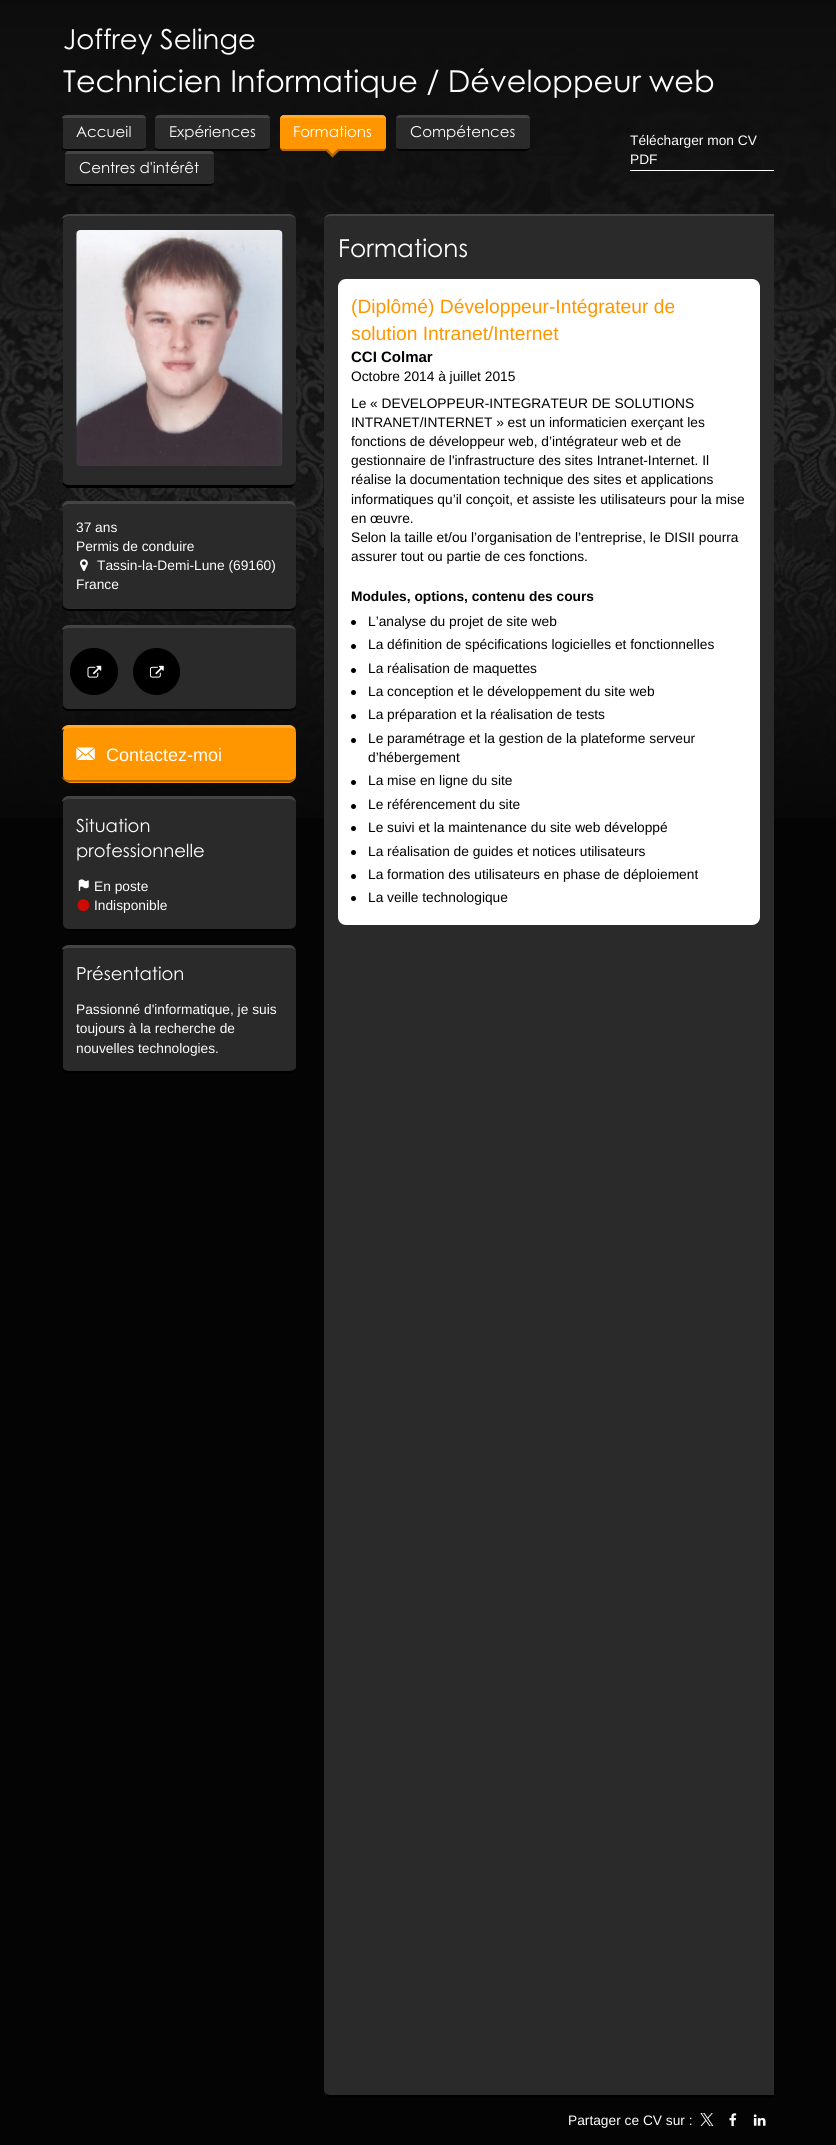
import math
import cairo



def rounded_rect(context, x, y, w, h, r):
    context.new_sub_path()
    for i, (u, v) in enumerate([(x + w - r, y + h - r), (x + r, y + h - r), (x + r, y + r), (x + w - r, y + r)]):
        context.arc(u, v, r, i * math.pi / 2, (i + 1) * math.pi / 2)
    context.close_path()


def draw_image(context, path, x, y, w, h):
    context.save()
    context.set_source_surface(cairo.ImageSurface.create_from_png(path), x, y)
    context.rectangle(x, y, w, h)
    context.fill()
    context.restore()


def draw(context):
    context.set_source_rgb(4 / 255, 4 / 255, 4 / 255)
    context.paint()
    draw_image(context, "images/1.png", 0, 0, 836, 818)
    context.set_source_rgb(42 / 255, 42 / 255, 42 / 255)
    rounded_rect(context, 63, 115, 83, 36, 4)
    context.fill()
    context.set_source_rgb(68 / 255, 68 / 255, 68 / 255)
    context.new_path()
    context.move_to(67, 115)
    context.curve_to(65, 115, 63, 116, 62, 117)
    context.line_to(62, 118)
    context.line_to(144, 118)
    context.curve_to(145, 118, 146, 118, 146, 119)
    context.curve_to(146, 117, 144, 115, 142, 115)
    context.close_path()
    context.fill()
    context.set_source_rgb(0, 0, 0)
    context.new_path()
    context.move_to(142, 151)
    context.curve_to(144, 151, 146, 149, 146, 147)
    context.curve_to(146, 148, 144, 149, 142, 149)
    context.line_to(67, 149)
    context.curve_to(65, 149, 63, 149, 62, 148)
    context.line_to(62, 149)
    context.curve_to(63, 150, 65, 151, 67, 151)
    context.close_path()
    context.fill()
    context.set_source_rgb(42 / 255, 42 / 255, 42 / 255)
    rounded_rect(context, 155, 115, 115, 36, 4)
    context.fill()
    context.set_source_rgb(68 / 255, 68 / 255, 68 / 255)
    context.new_path()
    context.move_to(159, 115)
    context.curve_to(157, 115, 155, 117, 155, 119)
    context.curve_to(155, 118, 157, 118, 159, 118)
    context.line_to(266, 118)
    context.curve_to(268, 118, 270, 118, 270, 119)
    context.curve_to(270, 117, 268, 115, 266, 115)
    context.close_path()
    context.fill()
    context.set_source_rgb(0, 0, 0)
    context.new_path()
    context.move_to(266, 151)
    context.curve_to(268, 151, 270, 149, 270, 147)
    context.curve_to(270, 148, 268, 149, 266, 149)
    context.line_to(159, 149)
    context.curve_to(157, 149, 155, 148, 155, 147)
    context.curve_to(155, 149, 157, 151, 159, 151)
    context.close_path()
    context.fill()
    context.set_source_rgb(1, 150 / 255, 0)
    rounded_rect(context, 280, 115, 106, 36, 4)
    context.fill()
    context.set_source_rgb(1, 171 / 255, 51 / 255)
    context.new_path()
    context.move_to(284, 115)
    context.curve_to(282, 115, 280, 117, 280, 119)
    context.curve_to(280, 118, 282, 118, 284, 118)
    context.line_to(382, 118)
    context.curve_to(384, 118, 386, 118, 386, 119)
    context.curve_to(386, 117, 384, 115, 382, 115)
    context.close_path()
    context.fill()
    context.set_source_rgb(179 / 255, 105 / 255, 0)
    context.new_path()
    context.move_to(382, 151)
    context.curve_to(384, 151, 386, 149, 386, 147)
    context.curve_to(386, 148, 384, 149, 382, 149)
    context.line_to(284, 149)
    context.curve_to(282, 149, 280, 148, 280, 147)
    context.curve_to(280, 149, 282, 151, 284, 151)
    context.close_path()
    context.fill()
    context.new_path()
    context.move_to(326, 151)
    context.line_to(339, 151)
    context.line_to(332.5, 157.5)
    context.close_path()
    context.fill()
    context.set_source_rgb(1, 150 / 255, 0)
    context.new_path()
    context.move_to(326, 147.5)
    context.line_to(339, 147.5)
    context.line_to(332.5, 154)
    context.close_path()
    context.fill()
    context.set_source_rgb(42 / 255, 42 / 255, 42 / 255)
    rounded_rect(context, 396, 115, 134, 36, 4)
    context.fill()
    context.set_source_rgb(68 / 255, 68 / 255, 68 / 255)
    context.new_path()
    context.move_to(400, 115)
    context.curve_to(398, 115, 396, 117, 396, 118)
    context.curve_to(398, 117, 475, 118, 484, 118)
    context.line_to(529, 118)
    context.line_to(530, 119)
    context.curve_to(530, 117, 528, 115, 526, 115)
    context.close_path()
    context.fill()
    context.set_source_rgb(0, 0, 0)
    context.new_path()
    context.move_to(526, 151)
    context.curve_to(528, 151, 530, 149, 530, 147)
    context.curve_to(530, 148, 528, 149, 526, 149)
    context.line_to(400, 149)
    context.curve_to(398, 149, 397, 148, 396, 148)
    context.curve_to(397, 150, 398, 151, 400, 151)
    context.close_path()
    context.fill()
    context.set_source_rgb(42 / 255, 42 / 255, 42 / 255)
    rounded_rect(context, 65, 151, 149, 35, 4)
    context.fill()
    context.set_source_rgb(68 / 255, 68 / 255, 68 / 255)
    context.new_path()
    context.move_to(69, 154)
    context.curve_to(67, 154, 65, 154, 65, 155)
    context.curve_to(65, 154, 66, 151, 68, 151)
    context.line_to(211, 151)
    context.line_to(213, 152)
    context.line_to(214, 154)
    context.line_to(210, 154)
    context.close_path()
    context.fill()
    context.set_source_rgb(0, 0, 0)
    context.new_path()
    context.move_to(214, 183)
    context.curve_to(214, 184, 212, 186, 210, 186)
    context.line_to(69, 186)
    context.curve_to(67, 186, 65, 184, 65, 182)
    context.curve_to(65, 183, 67, 184, 69, 184)
    context.line_to(210, 184)
    context.curve_to(212, 184, 213, 183, 214, 183)
    context.close_path()
    context.fill()
    context.set_source_rgb(1, 1, 1)
    context.rectangle(630, 170, 144, 1)
    context.fill()
    context.set_source_rgb(42 / 255, 42 / 255, 42 / 255)
    rounded_rect(context, 63, 214, 233, 274, 8)
    context.fill()
    context.set_source_rgb(68 / 255, 68 / 255, 68 / 255)
    context.new_path()
    context.move_to(69, 214)
    context.line_to(289, 214)
    context.curve_to(293, 214, 296, 217, 296, 221)
    context.curve_to(296, 218, 293, 216, 289, 216)
    context.line_to(69, 216)
    context.curve_to(67, 216, 64, 217, 62, 219)
    context.curve_to(62, 216, 66, 214, 69, 214)
    context.close_path()
    context.fill()
    context.set_source_rgb(0, 0, 0)
    context.new_path()
    context.move_to(291, 488)
    context.curve_to(294, 486, 296, 483, 296, 481)
    context.curve_to(296, 483, 293, 485, 289, 485)
    context.line_to(69, 485)
    context.curve_to(67, 485, 64, 484, 62, 482)
    context.curve_to(62, 484, 65, 487, 67, 488)
    context.close_path()
    context.fill()
    draw_image(context, "images/2.png", 76, 230, 207, 236)
    context.set_source_rgb(42 / 255, 42 / 255, 42 / 255)
    rounded_rect(context, 63, 501, 233, 110, 8)
    context.fill()
    context.set_source_rgb(68 / 255, 68 / 255, 68 / 255)
    context.new_path()
    context.move_to(69, 504)
    context.curve_to(67, 504, 64, 505, 62, 507)
    context.line_to(62, 506)
    context.curve_to(63, 503, 65, 502, 67, 501)
    context.line_to(291, 501)
    context.curve_to(294, 502, 296, 505, 296, 508)
    context.curve_to(296, 506, 293, 504, 289, 504)
    context.close_path()
    context.fill()
    context.set_source_rgb(0, 0, 0)
    context.new_path()
    context.move_to(289, 611)
    context.curve_to(293, 611, 296, 608, 296, 604)
    context.curve_to(296, 607, 293, 609, 289, 609)
    context.line_to(69, 609)
    context.curve_to(67, 609, 64, 608, 62, 606)
    context.curve_to(62, 609, 66, 611, 69, 611)
    context.close_path()
    context.fill()
    draw_image(context, "images/3.png", 80, 559, 8, 12)
    context.set_source_rgb(42 / 255, 42 / 255, 42 / 255)
    rounded_rect(context, 63, 625, 233, 86, 8)
    context.fill()
    context.set_source_rgb(68 / 255, 68 / 255, 68 / 255)
    context.new_path()
    context.move_to(69, 625)
    context.curve_to(66, 625, 62, 627, 62, 630)
    context.curve_to(64, 629, 67, 628, 69, 628)
    context.line_to(289, 628)
    context.curve_to(293, 628, 296, 629, 296, 632)
    context.curve_to(296, 628, 293, 625, 289, 625)
    context.close_path()
    context.fill()
    context.set_source_rgb(0, 0, 0)
    context.new_path()
    context.move_to(289, 711)
    context.curve_to(293, 711, 296, 708, 296, 704)
    context.curve_to(296, 707, 293, 709, 289, 709)
    context.line_to(69, 709)
    context.curve_to(67, 709, 64, 708, 62, 706)
    context.curve_to(62, 709, 66, 711, 69, 711)
    context.close_path()
    context.fill()
    rounded_rect(context, 70, 648, 48, 47, 23.5)
    context.fill()
    draw_image(context, "images/4.png", 87, 665, 15, 13)
    context.arc(156.5, 671.5, 23.5, 0, 2 * math.pi)
    context.fill()
    draw_image(context, "images/5.png", 150, 665, 14, 13)
    context.set_source_rgb(1, 150 / 255, 0)
    rounded_rect(context, 63, 725, 233, 58, 8)
    context.fill()
    context.set_source_rgb(1, 171 / 255, 51 / 255)
    context.new_path()
    context.move_to(69, 725)
    context.curve_to(66, 725, 62, 727, 62, 730)
    context.curve_to(64, 729, 67, 728, 69, 728)
    context.line_to(289, 728)
    context.curve_to(293, 728, 296, 729, 296, 732)
    context.curve_to(296, 728, 293, 725, 289, 725)
    context.close_path()
    context.fill()
    context.set_source_rgb(179 / 255, 105 / 255, 0)
    context.new_path()
    context.move_to(289, 782)
    context.curve_to(293, 782, 296, 779, 296, 776)
    context.curve_to(296, 778, 293, 780, 289, 780)
    context.line_to(69, 780)
    context.curve_to(67, 780, 64, 779, 62, 777)
    context.curve_to(62, 780, 67, 782, 69, 782)
    context.close_path()
    context.fill()
    draw_image(context, "images/6.png", 76, 747, 19, 13)
    context.set_source_rgb(42 / 255, 42 / 255, 42 / 255)
    rounded_rect(context, 63, 796, 233, 135, 8)
    context.fill()
    context.set_source_rgb(68 / 255, 68 / 255, 68 / 255)
    context.new_path()
    context.move_to(69, 799)
    context.curve_to(67, 799, 64, 800, 62, 802)
    context.line_to(62, 801)
    context.curve_to(63, 798, 65, 797, 67, 796)
    context.line_to(291, 796)
    context.curve_to(294, 797, 296, 800, 296, 803)
    context.curve_to(296, 801, 293, 799, 289, 799)
    context.close_path()
    context.fill()
    context.set_source_rgb(0, 0, 0)
    context.new_path()
    context.move_to(289, 931)
    context.curve_to(293, 931, 296, 928, 296, 924)
    context.curve_to(296, 927, 293, 929, 289, 929)
    context.line_to(69, 929)
    context.curve_to(67, 929, 64, 928, 62, 926)
    context.curve_to(62, 929, 66, 931, 69, 931)
    context.close_path()
    context.fill()
    draw_image(context, "images/7.png", 78, 879, 11, 12)
    draw_image(context, "images/8.png", 77, 899, 13, 13)
    context.set_source_rgb(42 / 255, 42 / 255, 42 / 255)
    rounded_rect(context, 63, 945, 233, 129, 8)
    context.fill()
    context.set_source_rgb(68 / 255, 68 / 255, 68 / 255)
    context.new_path()
    context.move_to(69, 945)
    context.curve_to(66, 945, 62, 947, 62, 950)
    context.curve_to(64, 949, 67, 948, 69, 948)
    context.line_to(289, 948)
    context.curve_to(293, 948, 296, 949, 296, 952)
    context.curve_to(296, 948, 293, 945, 289, 945)
    context.close_path()
    context.fill()
    context.set_source_rgb(0, 0, 0)
    context.new_path()
    context.move_to(291, 1074)
    context.curve_to(294, 1073, 296, 1070, 296, 1067)
    context.curve_to(296, 1069, 293, 1071, 289, 1071)
    context.line_to(69, 1071)
    context.curve_to(67, 1071, 64, 1070, 62, 1068)
    context.line_to(62, 1069)
    context.curve_to(63, 1072, 65, 1073, 67, 1074)
    context.close_path()
    context.fill()
    context.set_source_rgb(42 / 255, 42 / 255, 42 / 255)
    context.new_path()
    context.move_to(332, 214)
    context.line_to(774, 214)
    context.line_to(774, 2098)
    context.line_to(332, 2098)
    context.curve_to(327.5, 2098, 324, 2094.5, 324, 2090)
    context.line_to(324, 222)
    context.curve_to(324, 217.5, 327.5, 214, 332, 214)
    context.close_path()
    context.fill()
    context.set_source_rgb(68 / 255, 68 / 255, 68 / 255)
    context.new_path()
    context.move_to(331, 214)
    context.line_to(774, 214)
    context.line_to(774, 216)
    context.line_to(331, 216)
    context.curve_to(327, 216, 324, 218, 324, 221)
    context.curve_to(324, 217, 327, 214, 331, 214)
    context.close_path()
    context.fill()
    context.set_source_rgb(0, 0, 0)
    context.new_path()
    context.move_to(774, 2098)
    context.line_to(329, 2098)
    context.curve_to(326, 2096, 324, 2093, 324, 2091)
    context.curve_to(324, 2093, 327, 2095, 331, 2095)
    context.line_to(774, 2095)
    context.close_path()
    context.fill()
    context.set_source_rgb(1, 1, 1)
    rounded_rect(context, 338, 279, 422, 646, 8)
    context.fill()
    context.set_source_rgb(0, 0, 0)
    context.arc(353.5, 622.5, 2.5, 0, 2 * math.pi)
    context.fill()
    context.arc(353.5, 646.5, 2.5, 0, 2 * math.pi)
    context.fill()
    context.arc(353.5, 670.5, 2.5, 0, 2 * math.pi)
    context.fill()
    context.arc(353.5, 692.5, 2.5, 0, 2 * math.pi)
    context.fill()
    context.arc(353.5, 716.5, 2.5, 0, 2 * math.pi)
    context.fill()
    context.arc(353.5, 740.5, 2.5, 0, 2 * math.pi)
    context.fill()
    context.arc(353.5, 782.5, 2.5, 0, 2 * math.pi)
    context.fill()
    context.arc(353.5, 806.5, 2.5, 0, 2 * math.pi)
    context.fill()
    context.arc(353.5, 828.5, 2.5, 0, 2 * math.pi)
    context.fill()
    context.arc(353.5, 852.5, 2.5, 0, 2 * math.pi)
    context.fill()
    context.arc(353.5, 876.5, 2.5, 0, 2 * math.pi)
    context.fill()
    context.arc(353.5, 898.5, 2.5, 0, 2 * math.pi)
    context.fill()
    draw_image(context, "images/9.png", 700, 2113, 14, 13)
    draw_image(context, "images/10.png", 729, 2113, 8, 14)
    draw_image(context, "images/11.png", 753, 2114, 13, 12)
    context.select_font_face("Century Gothic")
    context.set_font_size(27.5)
    context.set_source_rgb(1, 1, 1)
    context.move_to(63, 49)
    context.show_text("Joffrey Selinge")
    context.set_font_size(30.25)
    context.move_to(63, 92)
    context.show_text("Technicien Informatique / Développeur web")
    context.set_font_size(15)
    context.move_to(76, 137)
    context.show_text("Accueil")
    context.move_to(169, 137)
    context.show_text("Expériences")
    context.move_to(293, 137)
    context.show_text("Formations")
    context.move_to(410, 137)
    context.show_text("Compétences")
    context.move_to(79, 173)
    context.show_text("Centres d'intérêt")
    context.select_font_face("Liberation Sans")
    context.set_font_size(13.75)
    context.move_to(630, 145)
    context.show_text("Télécharger mon CV")
    context.move_to(630, 164)
    context.show_text("PDF")
    context.move_to(76, 532)
    context.show_text("37 ans")
    context.move_to(76, 551)
    context.show_text("Permis de conduire")
    context.move_to(97, 570)
    context.show_text("Tassin-la-Demi-Lune (69160)")
    context.move_to(76, 589)
    context.show_text("France")
    context.set_font_size(18)
    context.move_to(106, 761)
    context.show_text("Contactez-moi")
    context.select_font_face("Century Gothic")
    context.move_to(76, 832)
    context.show_text("Situation")
    context.move_to(76, 857)
    context.show_text("professionnelle")
    context.select_font_face("Liberation Sans")
    context.set_font_size(13.75)
    context.move_to(94, 891)
    context.show_text("En poste")
    context.move_to(94, 910)
    context.show_text("Indisponible")
    context.select_font_face("Century Gothic")
    context.set_font_size(18)
    context.move_to(76, 980)
    context.show_text("Présentation")
    context.select_font_face("Liberation Sans")
    context.set_font_size(13.75)
    context.move_to(76, 1014)
    context.show_text("Passionné d'informatique, je suis")
    context.move_to(76, 1033)
    context.show_text("toujours à la recherche de")
    context.move_to(76, 1053)
    context.show_text("nouvelles technologies.")
    context.select_font_face("Century Gothic")
    context.set_font_size(24.75)
    context.move_to(338, 257)
    context.show_text("Formations")
    context.select_font_face("Liberation Sans")
    context.set_font_size(19.25)
    context.set_source_rgb(1, 150 / 255, 0)
    context.move_to(351, 313)
    context.show_text("(Diplômé) Développeur-Intégrateur de")
    context.move_to(351, 340)
    context.show_text("solution Intranet/Internet")
    context.select_font_face("Liberation Sans", cairo.FontSlant.NORMAL, cairo.FontWeight.BOLD)
    context.set_font_size(15)
    context.set_source_rgb(0, 0, 0)
    context.move_to(351, 362)
    context.show_text("CCI Colmar")
    context.select_font_face("Liberation Sans")
    context.set_font_size(13.75)
    context.move_to(351, 381)
    context.show_text("Octobre 2014 à juillet 2015")
    context.move_to(351, 408)
    context.show_text("Le « DEVELOPPEUR-INTEGRATEUR DE SOLUTIONS")
    context.move_to(351, 427)
    context.show_text("INTRANET/INTERNET » est un informaticien exerçant les")
    context.move_to(351, 446)
    context.show_text("fonctions de développeur web, d’intégrateur web et de")
    context.move_to(351, 465)
    context.show_text("gestionnaire de l'infrastructure des sites Intranet-Internet. Il")
    context.move_to(351, 484)
    context.show_text("réalise la documentation technique des sites et applications")
    context.move_to(351, 504)
    context.show_text("informatiques qu’il conçoit, et assiste les utilisateurs pour la mise")
    context.move_to(351, 523)
    context.show_text("en œuvre.")
    context.move_to(351, 542)
    context.show_text("Selon la taille et/ou l’organisation de l’entreprise, le DISII pourra")
    context.move_to(351, 561)
    context.show_text("assurer tout ou partie de ces fonctions.")
    context.select_font_face("Liberation Sans", cairo.FontSlant.NORMAL, cairo.FontWeight.BOLD)
    context.move_to(351, 601)
    context.show_text("Modules, options, contenu des cours")
    context.select_font_face("Liberation Sans")
    context.move_to(368, 626)
    context.show_text("L’analyse du projet de site web")
    context.move_to(368, 649)
    context.show_text("La définition de spécifications logicielles et fonctionnelles")
    context.move_to(368, 673)
    context.show_text("La réalisation de maquettes")
    context.move_to(368, 696)
    context.show_text("La conception et le développement du site web")
    context.move_to(368, 719)
    context.show_text("La préparation et la réalisation de tests")
    context.move_to(368, 743)
    context.show_text("Le paramétrage et la gestion de la plateforme serveur")
    context.move_to(368, 762)
    context.show_text("d’hébergement")
    context.move_to(368, 785)
    context.show_text("La mise en ligne du site")
    context.move_to(368, 809)
    context.show_text("Le référencement du site")
    context.move_to(368, 832)
    context.show_text("Le suivi et la maintenance du site web développé")
    context.move_to(368, 856)
    context.show_text("La réalisation de guides et notices utilisateurs")
    context.move_to(368, 879)
    context.show_text("La formation des utilisateurs en phase de déploiement")
    context.move_to(368, 902)
    context.show_text("La veille technologique")
    context.set_source_rgb(1, 1, 1)
    context.move_to(568, 2125)
    context.show_text("Partager ce CV sur :")


surface = cairo.ImageSurface(cairo.Format.RGB24, 836, 2145)
context = cairo.Context(surface)
options = cairo.FontOptions()
options.set_hint_metrics(cairo.HintMetrics.OFF)
options.set_hint_style(cairo.HintStyle.NONE)
context.set_font_options(options)
context.set_miter_limit(4)
draw(context)
surface.write_to_png("out.png")
